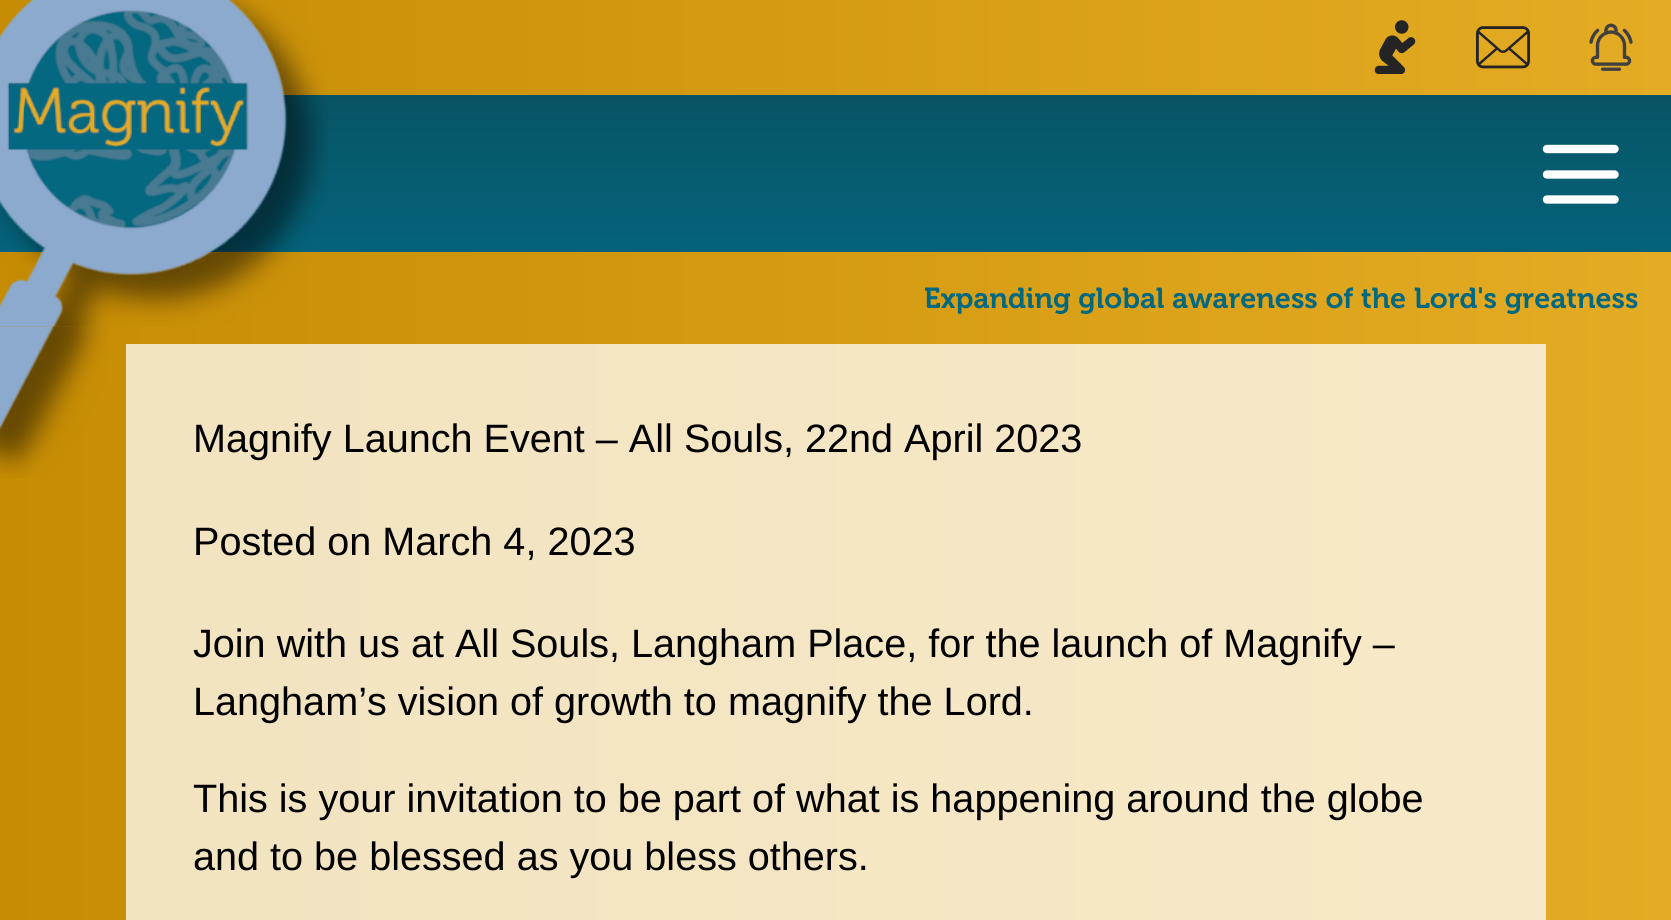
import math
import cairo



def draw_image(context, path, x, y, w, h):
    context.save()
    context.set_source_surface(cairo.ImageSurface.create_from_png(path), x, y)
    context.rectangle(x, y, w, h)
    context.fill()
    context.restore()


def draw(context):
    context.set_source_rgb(1, 1, 1)
    context.paint()
    gradient = cairo.LinearGradient(0, 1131, 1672, 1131)
    gradient.add_color_stop_rgba(0, 198 / 255, 140 / 255, 3 / 255, 1)
    gradient.add_color_stop_rgba(1, 228 / 255, 172 / 255, 36 / 255, 1)
    context.set_source(gradient)
    context.rectangle(0, 0, 1671, 920)
    context.fill()
    gradient = cairo.LinearGradient(0, 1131, 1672, 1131)
    gradient.add_color_stop_rgba(0, 241 / 255, 226 / 255, 192 / 255, 1)
    gradient.add_color_stop_rgba(1, 248 / 255, 234 / 255, 200 / 255, 1)
    context.set_source(gradient)
    context.rectangle(126, 344, 1420, 576)
    context.fill()
    gradient = cairo.LinearGradient(836, 252, 836, 95)
    gradient.add_color_stop_rgba(0, 4 / 255, 99 / 255, 123 / 255, 1)
    gradient.add_color_stop_rgba(1, 8 / 255, 84 / 255, 101 / 255, 1)
    context.set_source(gradient)
    context.rectangle(0, 95, 1671, 157)
    context.fill()
    draw_image(context, "images/1.png", 0, 0, 328, 327)
    draw_image(context, "images/2.png", 1374, 20, 42, 54)
    draw_image(context, "images/3.png", 1476, 26, 54, 43)
    draw_image(context, "images/4.png", 1589, 23, 44, 48)
    context.new_path()
    context.move_to(1547, 149)
    context.line_to(1614.5, 149)
    context.move_to(1547, 174.5)
    context.line_to(1614.5, 174.5)
    context.move_to(1547, 199.5)
    context.line_to(1614.5, 199.5)
    context.set_source_rgb(1, 1, 1)
    context.set_line_width(8.4)
    context.set_line_cap(cairo.LineCap.ROUND)
    context.set_line_join(cairo.LineJoin.ROUND)
    context.stroke()
    draw_image(context, "images/5.png", 0, 326, 108, 152)
    context.select_font_face("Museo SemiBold")
    context.set_font_size(28.8)
    context.set_source_rgb(2 / 255, 104 / 255, 128 / 255)
    context.move_to(924, 308)
    context.show_text("Expanding global awareness of the Lord's greatness")
    context.select_font_face("Liberation Sans")
    context.set_font_size(39.6)
    context.set_source_rgb(0, 0, 0)
    context.move_to(193, 452)
    context.show_text("Magnify Launch Event – All Souls, 22nd April 2023")
    context.move_to(193, 555)
    context.show_text("Posted on March 4, 2023")
    context.move_to(193, 657)
    context.show_text("Join with us at All Souls, Langham Place, for the launch of Magnify –")
    context.move_to(193, 715)
    context.show_text("Langham’s vision of growth to magnify the Lord.")
    context.move_to(193, 812)
    context.show_text("This is your invitation to be part of what is happening around the globe")
    context.move_to(193, 870)
    context.show_text("and to be blessed as you bless others.")


surface = cairo.ImageSurface(cairo.Format.RGB24, 1671, 920)
context = cairo.Context(surface)
options = cairo.FontOptions()
options.set_hint_metrics(cairo.HintMetrics.OFF)
options.set_hint_style(cairo.HintStyle.NONE)
context.set_font_options(options)
context.set_miter_limit(4)
draw(context)
surface.write_to_png("out.png")
